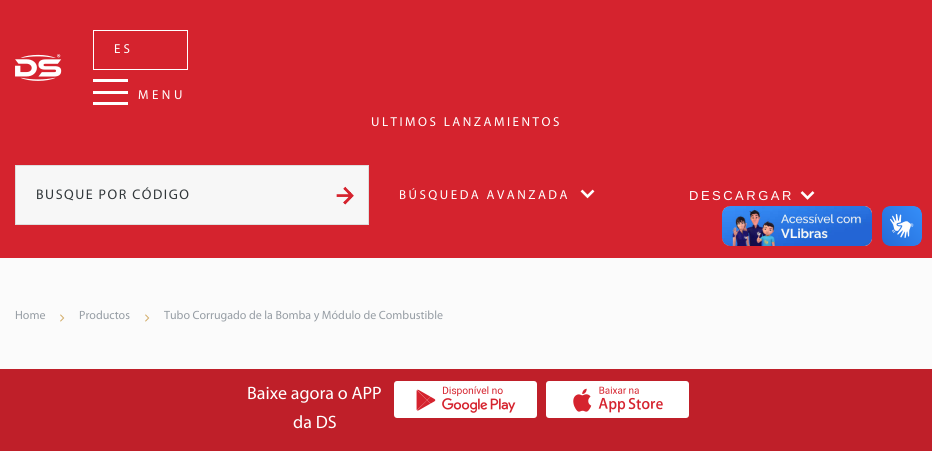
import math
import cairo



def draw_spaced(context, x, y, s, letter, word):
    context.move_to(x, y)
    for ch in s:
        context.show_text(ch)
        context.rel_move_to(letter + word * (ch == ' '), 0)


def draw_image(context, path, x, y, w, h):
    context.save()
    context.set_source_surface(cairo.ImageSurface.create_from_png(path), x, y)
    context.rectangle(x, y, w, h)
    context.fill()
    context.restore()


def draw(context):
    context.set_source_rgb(251 / 255, 251 / 255, 251 / 255)
    context.paint()
    context.set_source_rgb(213 / 255, 35 / 255, 46 / 255)
    context.rectangle(0, 0, 932, 258)
    context.fill()
    draw_image(context, "images/1.png", 15, 54, 47, 27)
    context.rectangle(93.5, 30.5, 94, 39)
    context.set_source_rgb(1, 1, 1)
    context.set_line_width(1)
    context.stroke()
    context.rectangle(93, 79, 35, 3)
    context.fill()
    context.rectangle(93, 91, 35, 3)
    context.fill()
    context.rectangle(93, 102, 35, 3)
    context.fill()
    context.set_source_rgb(247 / 255, 247 / 255, 247 / 255)
    context.rectangle(15.5, 165.5, 353, 59)
    context.fill_preserve()
    context.set_source_rgb(222 / 255, 222 / 255, 222 / 255)
    context.stroke()
    draw_image(context, "images/2.png", 336, 186, 18, 19)
    context.new_path()
    context.move_to(593.5, 190.5)
    context.line_to(587.5, 196.5)
    context.line_to(581.5, 190.5)
    context.set_source_rgb(1, 1, 1)
    context.set_line_width(2.6)
    context.stroke()
    context.new_path()
    context.move_to(813.5, 192)
    context.line_to(807.5, 198)
    context.line_to(801.5, 192)
    context.stroke()
    draw_image(context, "images/3.png", 722, 206, 150, 40)
    draw_image(context, "images/4.png", 882, 206, 40, 40)
    draw_image(context, "images/5.png", 60, 314, 5, 8)
    draw_image(context, "images/5.png", 145, 314, 5, 8)
    context.set_source_rgb(191 / 255, 31 / 255, 41 / 255)
    context.rectangle(0, 369, 932, 82)
    context.fill()
    draw_image(context, "images/6.png", 394, 381, 143, 37)
    draw_image(context, "images/7.png", 546, 381, 143, 37)
    context.select_font_face("Myriad")
    context.set_font_size(13)
    context.set_source_rgb(1, 1, 1)
    draw_spaced(context, 114, 53, "ES", 3, 0)
    draw_spaced(context, 138, 99, "MENU", 3.5, 0)
    draw_spaced(context, 371, 126, "ULTIMOS LANZAMIENTOS", 2.5, 0)
    context.set_font_size(14)
    context.set_source_rgb(49 / 255, 55 / 255, 58 / 255)
    draw_spaced(context, 36, 199, "BUSQUE POR CÓDIGO", 1.5, 0)
    context.set_font_size(13)
    context.set_source_rgb(1, 1, 1)
    draw_spaced(context, 399, 199, "BÚSQUEDA AVANZADA", 2.5, 0)
    context.select_font_face("Liberation Sans")
    draw_spaced(context, 689, 200, "DESCARGAR", 2.5, 0)
    context.select_font_face("Myriad")
    context.set_font_size(12)
    context.set_source_rgb(150 / 255, 157 / 255, 164 / 255)
    context.move_to(15, 319)
    context.show_text("Home")
    context.move_to(79, 319)
    context.show_text("Productos")
    context.move_to(164, 319)
    context.show_text("Tubo Corrugado de la Bomba y Módulo de Combustible")
    context.set_font_size(18)
    context.set_source_rgb(1, 1, 1)
    context.move_to(247, 399)
    context.show_text("Baixe agora o APP")
    context.move_to(293, 428)
    context.show_text("da DS")


surface = cairo.ImageSurface(cairo.Format.RGB24, 932, 451)
context = cairo.Context(surface)
options = cairo.FontOptions()
options.set_hint_metrics(cairo.HintMetrics.OFF)
options.set_hint_style(cairo.HintStyle.NONE)
context.set_font_options(options)
context.set_miter_limit(4)
draw(context)
surface.write_to_png("out.png")
